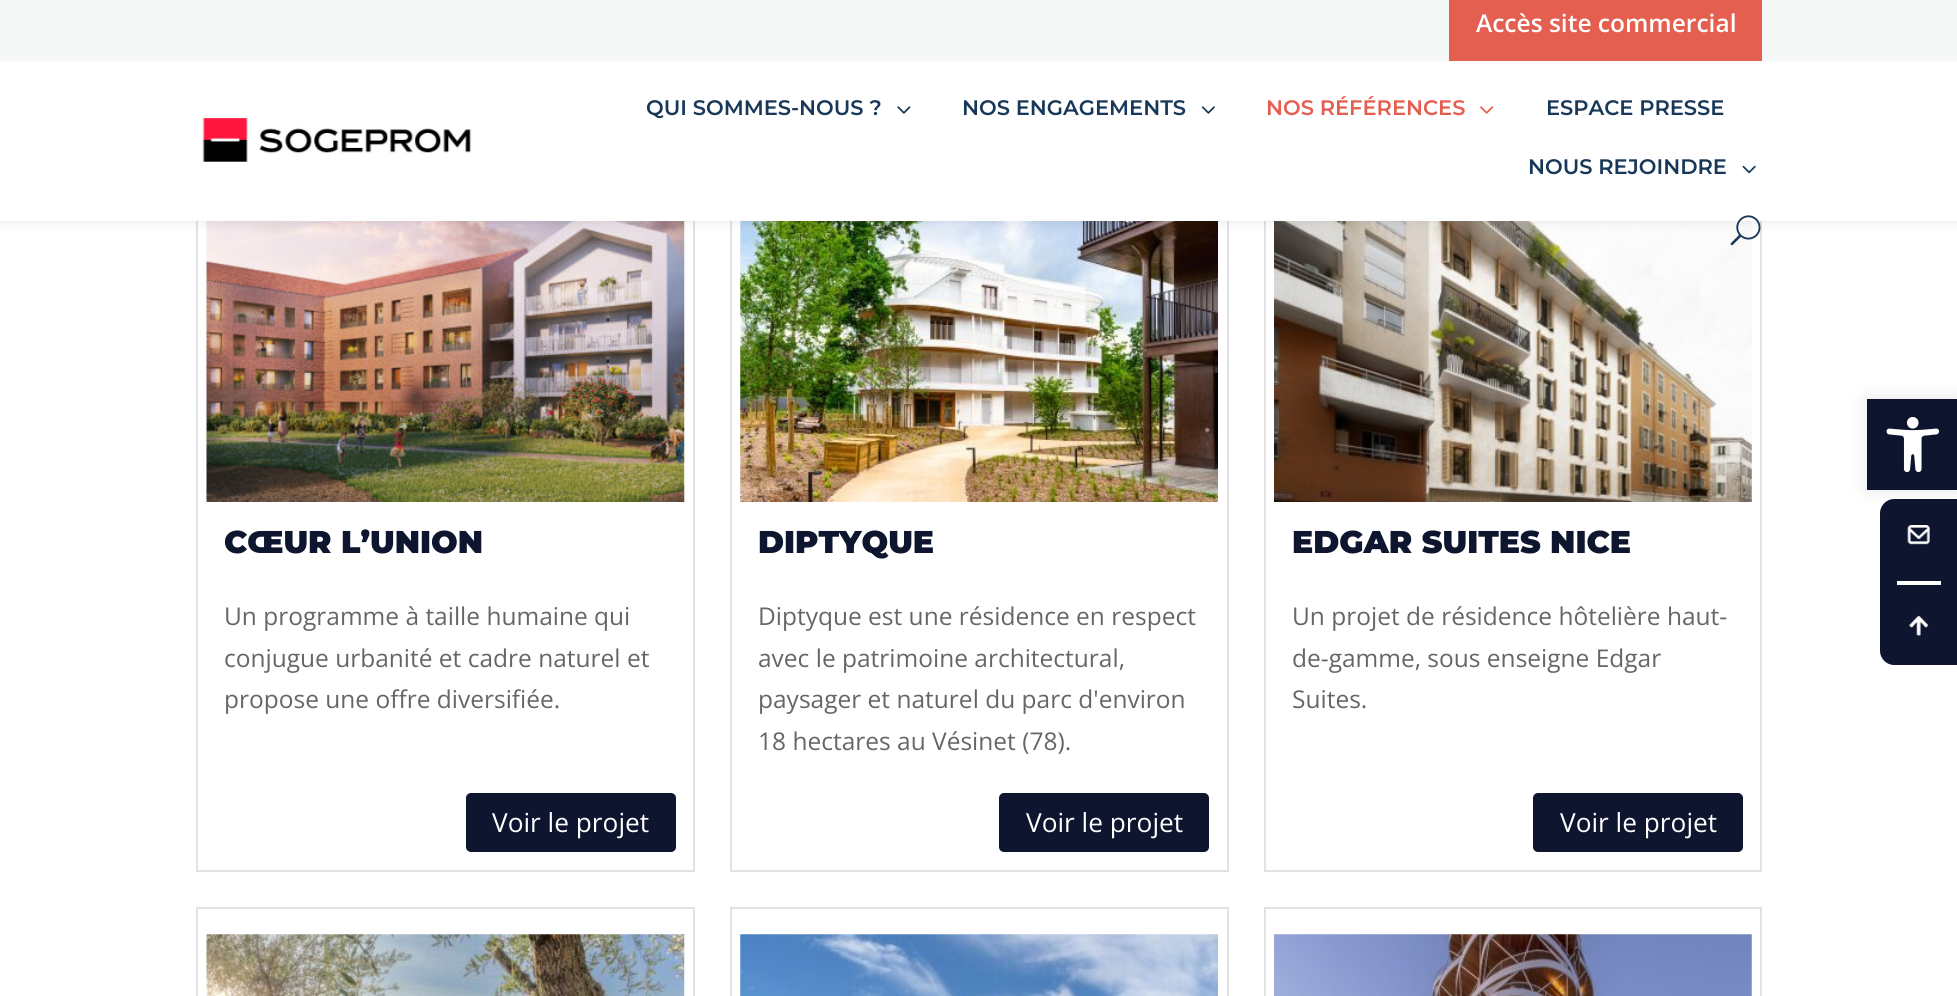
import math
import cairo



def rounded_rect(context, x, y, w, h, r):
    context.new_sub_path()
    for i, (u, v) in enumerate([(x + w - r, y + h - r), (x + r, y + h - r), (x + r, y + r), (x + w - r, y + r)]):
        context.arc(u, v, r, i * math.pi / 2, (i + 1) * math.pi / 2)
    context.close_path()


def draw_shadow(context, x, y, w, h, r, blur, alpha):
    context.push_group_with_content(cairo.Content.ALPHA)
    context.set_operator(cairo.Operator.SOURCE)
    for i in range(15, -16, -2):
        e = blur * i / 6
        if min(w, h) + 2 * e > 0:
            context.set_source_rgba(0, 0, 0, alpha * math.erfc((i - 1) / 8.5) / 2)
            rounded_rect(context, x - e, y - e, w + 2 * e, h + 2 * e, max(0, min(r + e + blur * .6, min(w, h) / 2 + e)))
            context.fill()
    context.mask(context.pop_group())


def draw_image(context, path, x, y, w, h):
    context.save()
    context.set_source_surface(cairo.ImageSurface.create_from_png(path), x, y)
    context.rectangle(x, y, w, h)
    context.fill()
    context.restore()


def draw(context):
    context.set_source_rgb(1, 1, 1)
    context.paint()
    context.rectangle(197, 136, 497, 735)
    context.set_source_rgb(226 / 255, 226 / 255, 226 / 255)
    context.stroke()
    draw_image(context, "images/7.png", 206, 221, 479, 281)
    context.rectangle(731, 136, 497, 735)
    context.stroke()
    draw_image(context, "images/8.png", 740, 221, 478, 281)
    context.rectangle(1265, 136, 496, 735)
    context.stroke()
    draw_image(context, "images/9.png", 1274, 221, 478, 281)
    context.set_source_rgb(0, 0, 0)
    draw_shadow(context, 0, 61, 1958, 160, 0, 6, 0.1)
    context.set_source_rgb(246 / 255, 247 / 255, 247 / 255)
    context.rectangle(0, 0, 1957, 61)
    context.fill()
    context.set_source_rgb(229 / 255, 95 / 255, 80 / 255)
    context.rectangle(1449, 0, 313, 61)
    context.fill()
    context.set_source_rgb(1, 1, 1)
    context.rectangle(0, 61, 1957, 160)
    context.fill()
    draw_image(context, "images/1.png", 202, 115, 270, 47)
    draw_image(context, "images/2.png", 897, 106, 14, 8)
    draw_image(context, "images/3.png", 1201, 106, 14, 8)
    draw_image(context, "images/4.png", 1480, 106, 14, 8)
    draw_image(context, "images/5.png", 1742, 165, 14, 9)
    draw_image(context, "images/6.png", 1730, 215, 31, 31)
    context.set_source_rgb(14 / 255, 21 / 255, 46 / 255)
    rounded_rect(context, 466, 793, 210, 59, 5)
    context.fill()
    rounded_rect(context, 999, 793, 210, 59, 5)
    context.fill()
    rounded_rect(context, 1533, 793, 210, 59, 5)
    context.fill()
    context.rectangle(197, 908, 497, 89)
    context.set_source_rgb(226 / 255, 226 / 255, 226 / 255)
    context.stroke()
    draw_image(context, "images/10.png", 206, 934, 479, 62)
    context.rectangle(731, 908, 497, 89)
    context.stroke()
    draw_image(context, "images/11.png", 740, 934, 478, 62)
    context.rectangle(1265, 908, 496, 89)
    context.stroke()
    draw_image(context, "images/12.png", 1274, 934, 478, 62)
    context.set_source_rgb(14 / 255, 21 / 255, 46 / 255)
    context.new_path()
    context.move_to(1894, 499)
    context.line_to(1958, 499)
    context.line_to(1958, 665)
    context.line_to(1894, 665)
    context.curve_to(1886.5, 665, 1880, 658.5, 1880, 651)
    context.line_to(1880, 513)
    context.curve_to(1880, 505.5, 1886.5, 499, 1894, 499)
    context.close_path()
    context.fill()
    draw_image(context, "images/13.png", 1907, 525, 23, 20)
    context.set_source_rgb(1, 1, 1)
    context.rectangle(1897, 581, 44, 4)
    context.fill()
    draw_image(context, "images/14.png", 1908, 615, 21, 21)
    context.set_source_rgb(0, 0, 0)
    draw_shadow(context, 1867, 399, 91, 91, 0, 9, 0.1)
    context.set_source_rgb(13 / 255, 21 / 255, 46 / 255)
    context.rectangle(1867, 399, 90, 91)
    context.fill()
    draw_image(context, "images/15.png", 1886, 417, 54, 56)
    context.select_font_face("Open Sans SemiBold")
    context.set_font_size(24.5)
    context.set_source_rgb(1, 1, 1)
    context.move_to(1476, 32)
    context.show_text("Accès site commercial")
    context.select_font_face("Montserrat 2 Thin")
    context.set_font_size(21)
    context.set_source_rgb(24 / 255, 56 / 255, 89 / 255)
    context.move_to(646, 115)
    context.show_text("QUI SOMMES-NOUS ?")
    context.move_to(962, 115)
    context.show_text("NOS ENGAGEMENTS")
    context.set_source_rgb(229 / 255, 95 / 255, 80 / 255)
    context.move_to(1266, 115)
    context.show_text("NOS RÉFÉRENCES")
    context.set_source_rgb(24 / 255, 56 / 255, 89 / 255)
    context.move_to(1546, 115)
    context.show_text("ESPACE PRESSE")
    context.move_to(1528, 174)
    context.show_text("NOUS REJOINDRE")
    context.select_font_face("Montserrat Thin")
    context.set_font_size(31.5)
    context.set_source_rgb(14 / 255, 21 / 255, 46 / 255)
    context.move_to(224, 553)
    context.show_text("CŒUR L’UNION")
    context.select_font_face("Open Sans")
    context.set_font_size(24.5)
    context.set_source_rgb(102 / 255, 102 / 255, 102 / 255)
    context.move_to(224, 625)
    context.show_text("Un programme à taille humaine qui")
    context.move_to(224, 667)
    context.show_text("conjugue urbanité et cadre naturel et")
    context.move_to(224, 708)
    context.show_text("propose une offre diversifiée.")
    context.set_font_size(26.25)
    context.set_source_rgb(1, 1, 1)
    context.move_to(492, 832)
    context.show_text("Voir le projet")
    context.select_font_face("Montserrat Thin")
    context.set_font_size(31.5)
    context.set_source_rgb(14 / 255, 21 / 255, 46 / 255)
    context.move_to(758, 553)
    context.show_text("DIPTYQUE")
    context.select_font_face("Open Sans")
    context.set_font_size(24.5)
    context.set_source_rgb(102 / 255, 102 / 255, 102 / 255)
    context.move_to(758, 625)
    context.show_text("Diptyque est une résidence en respect")
    context.move_to(758, 667)
    context.show_text("avec le patrimoine architectural,")
    context.move_to(758, 708)
    context.show_text("paysager et naturel du parc d'environ")
    context.move_to(758, 750)
    context.show_text("18 hectares au Vésinet (78).")
    context.set_font_size(26.25)
    context.set_source_rgb(1, 1, 1)
    context.move_to(1026, 832)
    context.show_text("Voir le projet")
    context.select_font_face("Montserrat Thin")
    context.set_font_size(31.5)
    context.set_source_rgb(14 / 255, 21 / 255, 46 / 255)
    context.move_to(1292, 553)
    context.show_text("EDGAR SUITES NICE")
    context.select_font_face("Open Sans")
    context.set_font_size(24.5)
    context.set_source_rgb(102 / 255, 102 / 255, 102 / 255)
    context.move_to(1292, 625)
    context.show_text("Un projet de résidence hôtelière haut-")
    context.move_to(1292, 667)
    context.show_text("de-gamme, sous enseigne Edgar")
    context.move_to(1292, 708)
    context.show_text("Suites.")
    context.set_font_size(26.25)
    context.set_source_rgb(1, 1, 1)
    context.move_to(1560, 832)
    context.show_text("Voir le projet")


surface = cairo.ImageSurface(cairo.Format.RGB24, 1957, 996)
context = cairo.Context(surface)
options = cairo.FontOptions()
options.set_hint_metrics(cairo.HintMetrics.OFF)
options.set_hint_style(cairo.HintStyle.NONE)
context.set_font_options(options)
context.set_miter_limit(4)
draw(context)
surface.write_to_png("out.png")
